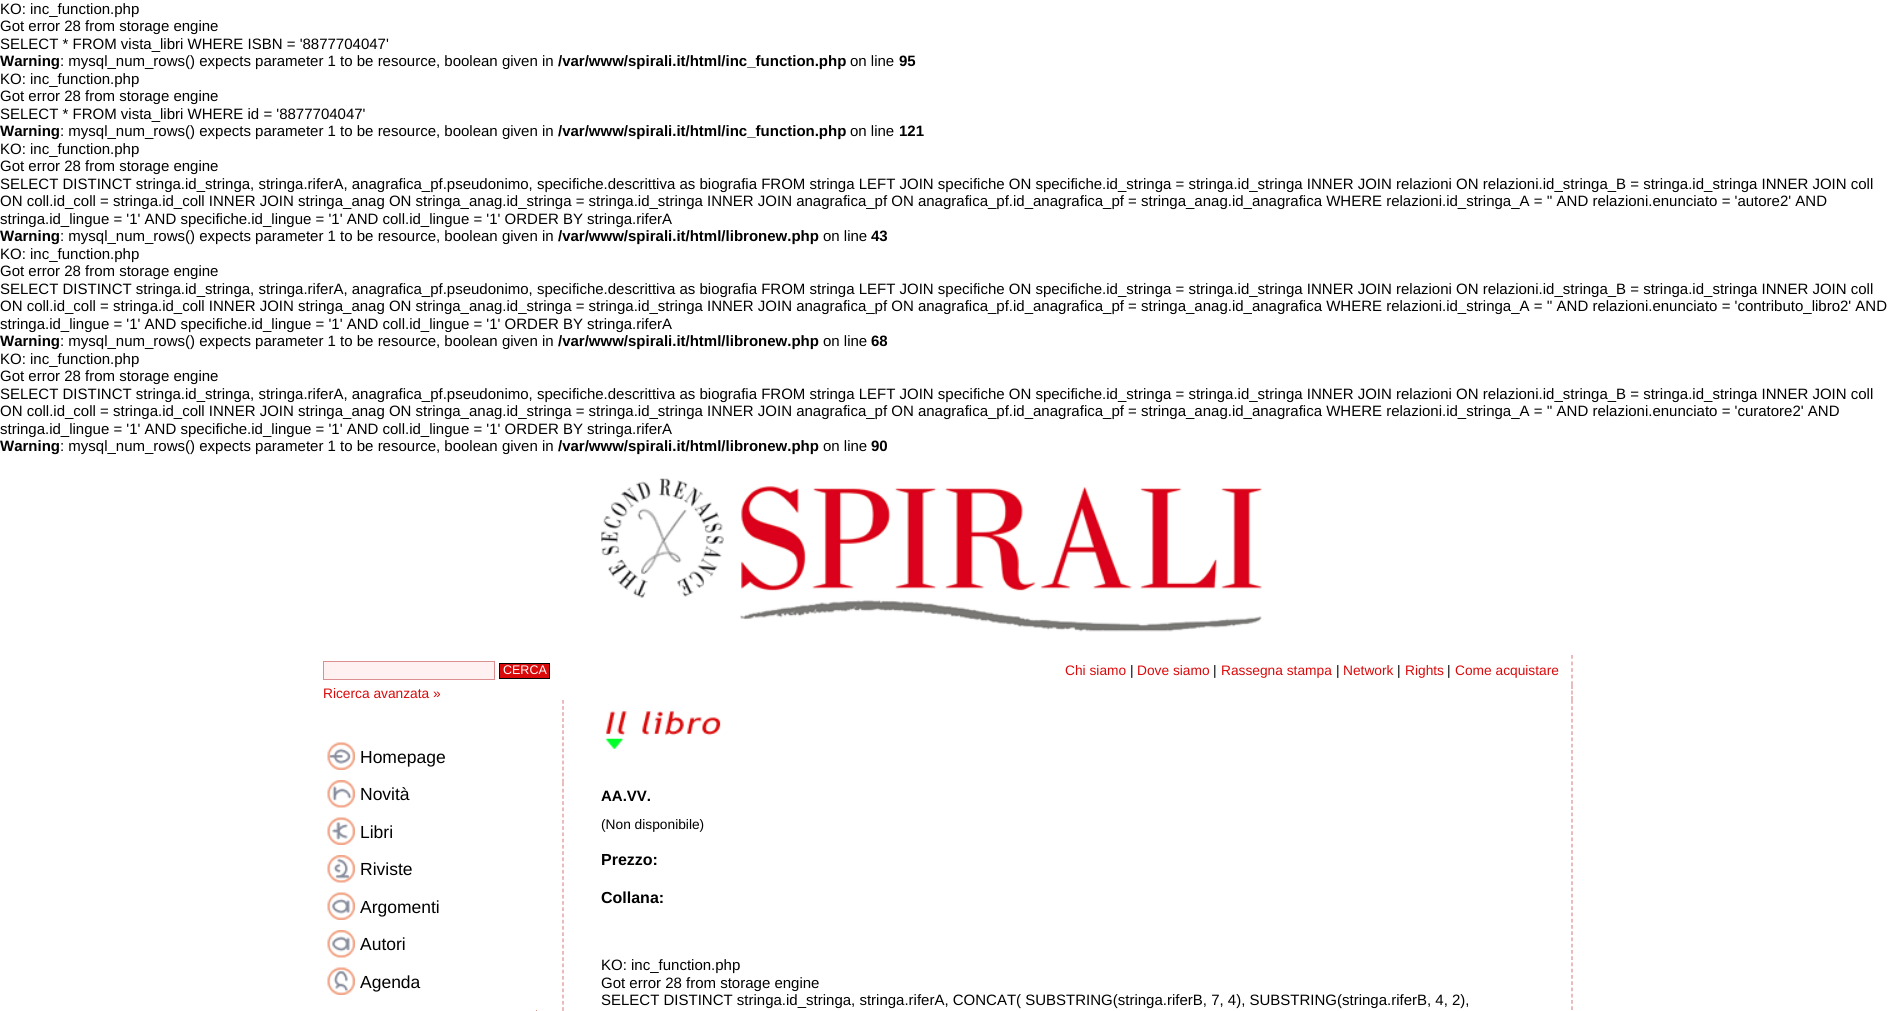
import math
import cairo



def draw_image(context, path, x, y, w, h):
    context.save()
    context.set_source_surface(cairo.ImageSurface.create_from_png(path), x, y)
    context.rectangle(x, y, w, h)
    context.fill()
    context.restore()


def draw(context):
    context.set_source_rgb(1, 1, 1)
    context.paint()
    draw_image(context, "images/1.png", 601, 478, 661, 154)
    context.set_source_rgb(1, 241 / 255, 241 / 255)
    context.rectangle(323.5, 661.5, 171, 18)
    context.fill_preserve()
    context.set_source_rgb(219 / 255, 143 / 255, 144 / 255)
    context.set_line_width(1)
    context.stroke()
    context.set_source_rgb(218 / 255, 9 / 255, 10 / 255)
    context.rectangle(499.5, 663.5, 50, 15)
    context.fill_preserve()
    context.set_source_rgb(0, 0, 0)
    context.stroke()
    context.new_path()
    context.move_to(1572, 655)
    context.line_to(1572, 685)
    context.set_source_rgb(219 / 255, 143 / 255, 144 / 255)
    context.set_line_width(1.2)
    context.set_dash([3.75, 2.81])
    context.stroke()
    context.new_path()
    context.move_to(1572, 685)
    context.line_to(1572, 689)
    context.move_to(1572, 690.5)
    context.line_to(1572, 694.5)
    context.move_to(1572, 696)
    context.line_to(1572, 700)
    context.set_dash([])
    context.stroke()
    context.new_path()
    context.move_to(1572, 700)
    context.line_to(1572, 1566)
    context.set_dash([3.75, 2.5])
    context.stroke()
    draw_image(context, "images/2.png", 327, 742, 28, 28)
    draw_image(context, "images/3.png", 327, 780, 28, 28)
    draw_image(context, "images/4.png", 327, 817, 28, 28)
    draw_image(context, "images/5.png", 327, 855, 28, 28)
    draw_image(context, "images/6.png", 327, 892, 28, 28)
    draw_image(context, "images/7.png", 327, 930, 28, 28)
    draw_image(context, "images/8.png", 327, 967, 28, 28)
    context.rectangle(536, 1010, 1, 1)
    context.fill()
    context.new_path()
    context.move_to(563, 700)
    context.line_to(563, 782.5)
    context.set_dash([3.75, 2.31])
    context.stroke()
    draw_image(context, "images/9.png", 606, 711, 115, 38)
    context.new_path()
    context.move_to(563, 782.5)
    context.line_to(563, 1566)
    context.set_dash([3.75, 2.49])
    context.stroke()
    context.select_font_face("Liberation Sans")
    context.set_font_size(15)
    context.set_source_rgb(0, 0, 0)
    context.move_to(0, 14)
    context.show_text("KO: inc_function.php")
    context.move_to(0, 31)
    context.show_text("Got error 28 from storage engine")
    context.move_to(0, 49)
    context.show_text("SELECT * FROM vista_libri WHERE ISBN = '8877704047'")
    context.select_font_face("Liberation Sans", cairo.FontSlant.NORMAL, cairo.FontWeight.BOLD)
    context.move_to(0, 66)
    context.show_text("Warning")
    context.select_font_face("Liberation Sans")
    context.move_to(60, 66)
    context.show_text(": mysql_num_rows() expects parameter 1 to be resource, boolean given in")
    context.select_font_face("Liberation Sans", cairo.FontSlant.NORMAL, cairo.FontWeight.BOLD)
    context.move_to(558, 66)
    context.show_text("/var/www/spirali.it/html/inc_function.php")
    context.select_font_face("Liberation Sans")
    context.move_to(850, 66)
    context.show_text("on line")
    context.select_font_face("Liberation Sans", cairo.FontSlant.NORMAL, cairo.FontWeight.BOLD)
    context.move_to(899, 66)
    context.show_text("95")
    context.select_font_face("Liberation Sans")
    context.move_to(0, 84)
    context.show_text("KO: inc_function.php")
    context.move_to(0, 101)
    context.show_text("Got error 28 from storage engine")
    context.move_to(0, 119)
    context.show_text("SELECT * FROM vista_libri WHERE id = '8877704047'")
    context.select_font_face("Liberation Sans", cairo.FontSlant.NORMAL, cairo.FontWeight.BOLD)
    context.move_to(0, 136)
    context.show_text("Warning")
    context.select_font_face("Liberation Sans")
    context.move_to(60, 136)
    context.show_text(": mysql_num_rows() expects parameter 1 to be resource, boolean given in")
    context.select_font_face("Liberation Sans", cairo.FontSlant.NORMAL, cairo.FontWeight.BOLD)
    context.move_to(558, 136)
    context.show_text("/var/www/spirali.it/html/inc_function.php")
    context.select_font_face("Liberation Sans")
    context.move_to(850, 136)
    context.show_text("on line")
    context.select_font_face("Liberation Sans", cairo.FontSlant.NORMAL, cairo.FontWeight.BOLD)
    context.move_to(899, 136)
    context.show_text("121")
    context.select_font_face("Liberation Sans")
    context.move_to(0, 154)
    context.show_text("KO: inc_function.php")
    context.move_to(0, 171)
    context.show_text("Got error 28 from storage engine")
    context.move_to(0, 189)
    context.show_text("SELECT DISTINCT stringa.id_stringa, stringa.riferA, anagrafica_pf.pseudonimo, specifiche.descrittiva as biografia FROM stringa LEFT JOIN specifiche ON specifiche.id_stringa = stringa.id_stringa INNER JOIN relazioni ON relazioni.id_stringa_B = stringa.id_stringa INNER JOIN coll")
    context.move_to(0, 206)
    context.show_text("ON coll.id_coll = stringa.id_coll INNER JOIN stringa_anag ON stringa_anag.id_stringa = stringa.id_stringa INNER JOIN anagrafica_pf ON anagrafica_pf.id_anagrafica_pf = stringa_anag.id_anagrafica WHERE relazioni.id_stringa_A = '' AND relazioni.enunciato = 'autore2' AND")
    context.move_to(0, 224)
    context.show_text("stringa.id_lingue = '1' AND specifiche.id_lingue = '1' AND coll.id_lingue = '1' ORDER BY stringa.riferA")
    context.select_font_face("Liberation Sans", cairo.FontSlant.NORMAL, cairo.FontWeight.BOLD)
    context.move_to(0, 241)
    context.show_text("Warning")
    context.select_font_face("Liberation Sans")
    context.move_to(60, 241)
    context.show_text(": mysql_num_rows() expects parameter 1 to be resource, boolean given in")
    context.select_font_face("Liberation Sans", cairo.FontSlant.NORMAL, cairo.FontWeight.BOLD)
    context.move_to(558, 241)
    context.show_text("/var/www/spirali.it/html/libronew.php")
    context.select_font_face("Liberation Sans")
    context.move_to(823, 241)
    context.show_text("on line")
    context.select_font_face("Liberation Sans", cairo.FontSlant.NORMAL, cairo.FontWeight.BOLD)
    context.move_to(871, 241)
    context.show_text("43")
    context.select_font_face("Liberation Sans")
    context.move_to(0, 259)
    context.show_text("KO: inc_function.php")
    context.move_to(0, 276)
    context.show_text("Got error 28 from storage engine")
    context.move_to(0, 294)
    context.show_text("SELECT DISTINCT stringa.id_stringa, stringa.riferA, anagrafica_pf.pseudonimo, specifiche.descrittiva as biografia FROM stringa LEFT JOIN specifiche ON specifiche.id_stringa = stringa.id_stringa INNER JOIN relazioni ON relazioni.id_stringa_B = stringa.id_stringa INNER JOIN coll")
    context.move_to(0, 311)
    context.show_text("ON coll.id_coll = stringa.id_coll INNER JOIN stringa_anag ON stringa_anag.id_stringa = stringa.id_stringa INNER JOIN anagrafica_pf ON anagrafica_pf.id_anagrafica_pf = stringa_anag.id_anagrafica WHERE relazioni.id_stringa_A = '' AND relazioni.enunciato = 'contributo_libro2' AND")
    context.move_to(0, 329)
    context.show_text("stringa.id_lingue = '1' AND specifiche.id_lingue = '1' AND coll.id_lingue = '1' ORDER BY stringa.riferA")
    context.select_font_face("Liberation Sans", cairo.FontSlant.NORMAL, cairo.FontWeight.BOLD)
    context.move_to(0, 346)
    context.show_text("Warning")
    context.select_font_face("Liberation Sans")
    context.move_to(60, 346)
    context.show_text(": mysql_num_rows() expects parameter 1 to be resource, boolean given in")
    context.select_font_face("Liberation Sans", cairo.FontSlant.NORMAL, cairo.FontWeight.BOLD)
    context.move_to(558, 346)
    context.show_text("/var/www/spirali.it/html/libronew.php")
    context.select_font_face("Liberation Sans")
    context.move_to(823, 346)
    context.show_text("on line")
    context.select_font_face("Liberation Sans", cairo.FontSlant.NORMAL, cairo.FontWeight.BOLD)
    context.move_to(871, 346)
    context.show_text("68")
    context.select_font_face("Liberation Sans")
    context.move_to(0, 364)
    context.show_text("KO: inc_function.php")
    context.move_to(0, 381)
    context.show_text("Got error 28 from storage engine")
    context.move_to(0, 399)
    context.show_text("SELECT DISTINCT stringa.id_stringa, stringa.riferA, anagrafica_pf.pseudonimo, specifiche.descrittiva as biografia FROM stringa LEFT JOIN specifiche ON specifiche.id_stringa = stringa.id_stringa INNER JOIN relazioni ON relazioni.id_stringa_B = stringa.id_stringa INNER JOIN coll")
    context.move_to(0, 416)
    context.show_text("ON coll.id_coll = stringa.id_coll INNER JOIN stringa_anag ON stringa_anag.id_stringa = stringa.id_stringa INNER JOIN anagrafica_pf ON anagrafica_pf.id_anagrafica_pf = stringa_anag.id_anagrafica WHERE relazioni.id_stringa_A = '' AND relazioni.enunciato = 'curatore2' AND")
    context.move_to(0, 434)
    context.show_text("stringa.id_lingue = '1' AND specifiche.id_lingue = '1' AND coll.id_lingue = '1' ORDER BY stringa.riferA")
    context.select_font_face("Liberation Sans", cairo.FontSlant.NORMAL, cairo.FontWeight.BOLD)
    context.move_to(0, 451)
    context.show_text("Warning")
    context.select_font_face("Liberation Sans")
    context.move_to(60, 451)
    context.show_text(": mysql_num_rows() expects parameter 1 to be resource, boolean given in")
    context.select_font_face("Liberation Sans", cairo.FontSlant.NORMAL, cairo.FontWeight.BOLD)
    context.move_to(558, 451)
    context.show_text("/var/www/spirali.it/html/libronew.php")
    context.select_font_face("Liberation Sans")
    context.move_to(823, 451)
    context.show_text("on line")
    context.select_font_face("Liberation Sans", cairo.FontSlant.NORMAL, cairo.FontWeight.BOLD)
    context.move_to(871, 451)
    context.show_text("90")
    context.select_font_face("Liberation Sans")
    context.set_font_size(12.5)
    context.set_source_rgb(1, 1, 1)
    context.move_to(503, 674)
    context.show_text("CERCA")
    context.set_font_size(13.75)
    context.set_source_rgb(218 / 255, 9 / 255, 10 / 255)
    context.move_to(1065, 675)
    context.show_text("Chi siamo")
    context.set_source_rgb(0, 0, 0)
    context.move_to(1130, 675)
    context.show_text("|")
    context.set_source_rgb(218 / 255, 9 / 255, 10 / 255)
    context.move_to(1137, 675)
    context.show_text("Dove siamo")
    context.set_source_rgb(0, 0, 0)
    context.move_to(1213, 675)
    context.show_text("|")
    context.set_source_rgb(218 / 255, 9 / 255, 10 / 255)
    context.move_to(1221, 675)
    context.show_text("Rassegna stampa")
    context.set_source_rgb(0, 0, 0)
    context.move_to(1336, 675)
    context.show_text("|")
    context.set_source_rgb(218 / 255, 9 / 255, 10 / 255)
    context.move_to(1343, 675)
    context.show_text("Network")
    context.set_source_rgb(0, 0, 0)
    context.move_to(1397, 675)
    context.show_text("|")
    context.set_source_rgb(218 / 255, 9 / 255, 10 / 255)
    context.move_to(1405, 675)
    context.show_text("Rights")
    context.set_source_rgb(0, 0, 0)
    context.move_to(1447, 675)
    context.show_text("|")
    context.set_source_rgb(218 / 255, 9 / 255, 10 / 255)
    context.move_to(1455, 675)
    context.show_text("Come acquistare")
    context.move_to(323, 698)
    context.show_text("Ricerca avanzata »")
    context.set_font_size(17.5)
    context.set_source_rgb(0, 0, 0)
    context.move_to(360, 763)
    context.show_text("Homepage")
    context.move_to(360, 800)
    context.show_text("Novità")
    context.move_to(360, 838)
    context.show_text("Libri")
    context.move_to(360, 875)
    context.show_text("Riviste")
    context.move_to(360, 913)
    context.show_text("Argomenti")
    context.move_to(360, 950)
    context.show_text("Autori")
    context.move_to(360, 988)
    context.show_text("Agenda")
    context.select_font_face("Liberation Sans", cairo.FontSlant.NORMAL, cairo.FontWeight.BOLD)
    context.set_font_size(15)
    context.move_to(601, 801)
    context.show_text("AA.VV.")
    context.select_font_face("Liberation Sans")
    context.set_font_size(13.75)
    context.move_to(601, 829)
    context.show_text("(Non disponibile)")
    context.select_font_face("Liberation Sans", cairo.FontSlant.NORMAL, cairo.FontWeight.BOLD)
    context.set_font_size(16)
    context.move_to(601, 865)
    context.show_text("Prezzo:")
    context.move_to(601, 903)
    context.show_text("Collana:")
    context.select_font_face("Liberation Sans")
    context.set_font_size(15)
    context.move_to(601, 970)
    context.show_text("KO: inc_function.php")
    context.move_to(601, 988)
    context.show_text("Got error 28 from storage engine")
    context.move_to(601, 1005)
    context.show_text("SELECT DISTINCT stringa.id_stringa, stringa.riferA, CONCAT( SUBSTRING(stringa.riferB, 7, 4), SUBSTRING(stringa.riferB, 4, 2),")


surface = cairo.ImageSurface(cairo.Format.RGB24, 1895, 1011)
context = cairo.Context(surface)
options = cairo.FontOptions()
options.set_hint_metrics(cairo.HintMetrics.OFF)
options.set_hint_style(cairo.HintStyle.NONE)
context.set_font_options(options)
context.set_miter_limit(4)
draw(context)
surface.write_to_png("out.png")
